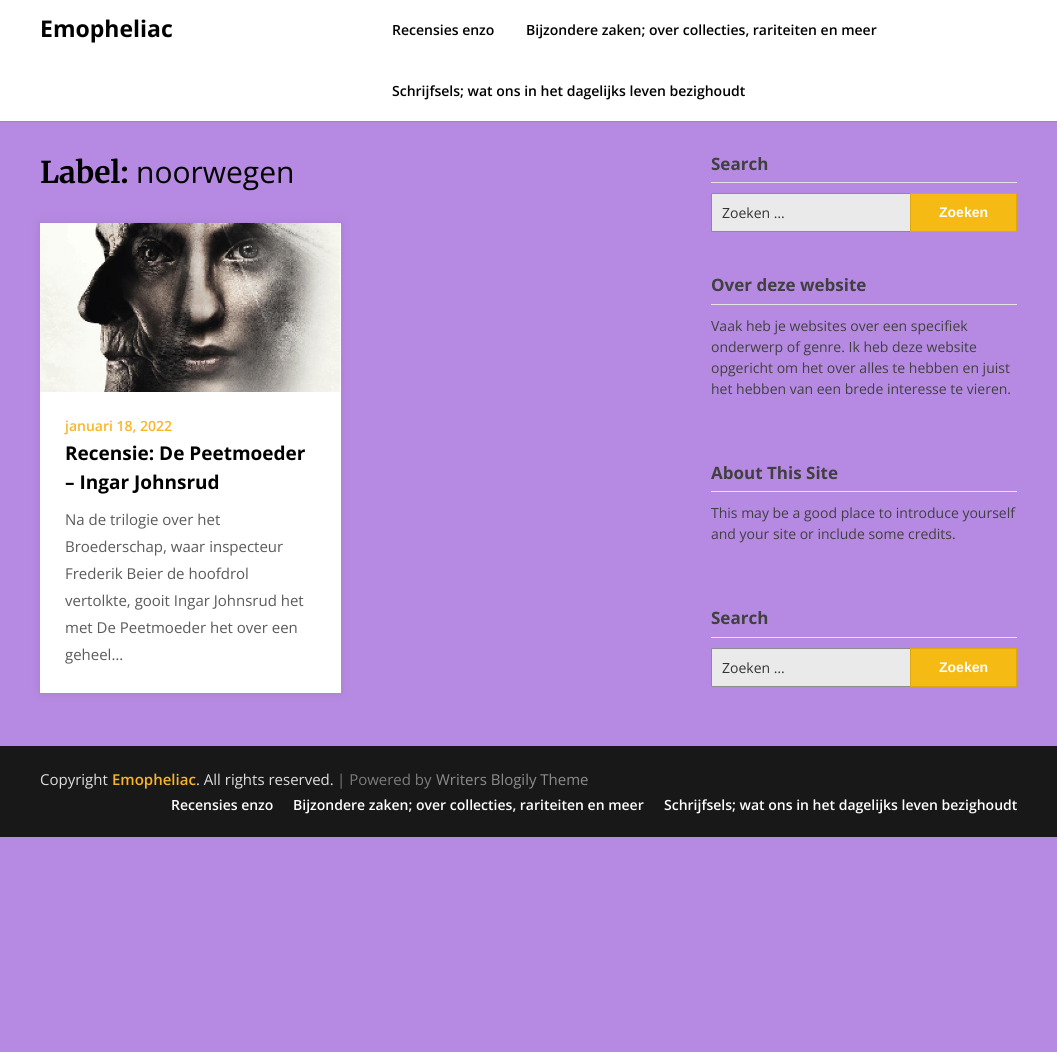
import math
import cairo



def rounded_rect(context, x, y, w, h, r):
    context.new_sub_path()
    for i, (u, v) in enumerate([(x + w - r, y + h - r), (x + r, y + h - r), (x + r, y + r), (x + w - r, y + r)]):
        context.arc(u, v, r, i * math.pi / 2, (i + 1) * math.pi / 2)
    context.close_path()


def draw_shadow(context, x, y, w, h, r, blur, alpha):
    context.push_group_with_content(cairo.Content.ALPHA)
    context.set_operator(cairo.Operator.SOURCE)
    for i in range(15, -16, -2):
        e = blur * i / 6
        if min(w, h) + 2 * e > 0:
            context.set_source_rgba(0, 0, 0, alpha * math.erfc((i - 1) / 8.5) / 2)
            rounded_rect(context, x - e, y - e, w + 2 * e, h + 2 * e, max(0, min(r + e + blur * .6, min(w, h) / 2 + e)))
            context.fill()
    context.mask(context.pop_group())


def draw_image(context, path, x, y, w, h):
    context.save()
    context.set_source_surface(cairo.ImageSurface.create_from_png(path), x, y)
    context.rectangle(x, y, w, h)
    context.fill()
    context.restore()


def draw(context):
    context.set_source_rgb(182 / 255, 138 / 255, 226 / 255)
    context.paint()
    context.set_source_rgb(0, 0, 0)
    draw_shadow(context, 0, 1, 1057, 121, 0, 0.5, 0.1)
    context.set_source_rgb(1, 1, 1)
    context.rectangle(0, 0, 1057, 121)
    context.fill()
    context.set_source_rgb(0, 0, 0)
    draw_shadow(context, 40, 223, 301, 470, 0, 5, 0.1)
    context.set_source_rgb(1, 1, 1)
    context.rectangle(40, 392, 301, 301)
    context.fill()
    draw_image(context, "images/1.png", 40, 223, 301, 169)
    context.set_source_rgb(228 / 255, 228 / 255, 228 / 255)
    context.rectangle(711, 182, 306, 1)
    context.fill()
    context.set_source_rgb(234 / 255, 234 / 255, 234 / 255)
    context.rectangle(711, 193, 199, 39)
    context.fill()
    context.set_source_rgb(140 / 255, 140 / 255, 140 / 255)
    context.new_path()
    context.move_to(711, 193)
    context.line_to(910, 193)
    context.line_to(910, 194)
    context.line_to(712, 194)
    context.close_path()
    context.fill()
    context.new_path()
    context.move_to(910, 232)
    context.line_to(711, 232)
    context.line_to(712, 231)
    context.line_to(910, 231)
    context.close_path()
    context.fill()
    context.set_source_rgba(0, 0, 0, 0.4)
    context.new_path()
    context.move_to(711, 232)
    context.line_to(711, 193)
    context.line_to(712, 194)
    context.line_to(712, 231)
    context.close_path()
    context.fill()
    context.set_source_rgb(245 / 255, 186 / 255, 20 / 255)
    context.rectangle(910.5, 193.5, 106, 38)
    context.fill_preserve()
    context.set_source_rgb(221 / 255, 167 / 255, 18 / 255)
    context.set_line_width(1)
    context.stroke()
    context.set_source_rgb(228 / 255, 228 / 255, 228 / 255)
    context.rectangle(711, 304, 306, 1)
    context.fill()
    context.rectangle(711, 491, 306, 1)
    context.fill()
    context.rectangle(711, 637, 306, 1)
    context.fill()
    context.set_source_rgb(234 / 255, 234 / 255, 234 / 255)
    context.rectangle(711, 648, 199, 39)
    context.fill()
    context.set_source_rgb(140 / 255, 140 / 255, 140 / 255)
    context.new_path()
    context.move_to(711, 648)
    context.line_to(910, 648)
    context.line_to(910, 649)
    context.line_to(712, 649)
    context.close_path()
    context.fill()
    context.new_path()
    context.move_to(910, 687)
    context.line_to(711, 687)
    context.line_to(712, 686)
    context.line_to(910, 686)
    context.close_path()
    context.fill()
    context.set_source_rgba(0, 0, 0, 0.4)
    context.new_path()
    context.move_to(711, 687)
    context.line_to(711, 648)
    context.line_to(712, 649)
    context.line_to(712, 686)
    context.close_path()
    context.fill()
    context.set_source_rgb(245 / 255, 186 / 255, 20 / 255)
    context.rectangle(910.5, 648.5, 106, 38)
    context.fill_preserve()
    context.set_source_rgb(221 / 255, 167 / 255, 18 / 255)
    context.stroke()
    context.set_source_rgb(24 / 255, 24 / 255, 24 / 255)
    context.rectangle(0, 746, 1057, 91)
    context.fill()
    context.select_font_face("Open Sans", cairo.FontSlant.NORMAL, cairo.FontWeight.BOLD)
    context.set_font_size(23)
    context.set_source_rgb(0, 0, 0)
    context.move_to(40, 37)
    context.show_text("Emopheliac")
    context.select_font_face("Open Sans SemiBold")
    context.set_font_size(14)
    context.move_to(392, 35)
    context.show_text("Recensies enzo")
    context.move_to(526, 35)
    context.show_text("Bijzondere zaken; over collecties, rariteiten en meer")
    context.move_to(392, 96)
    context.show_text("Schrijfsels; wat ons in het dagelijks leven bezighoudt")
    context.select_font_face("Merriweather", cairo.FontSlant.NORMAL, cairo.FontWeight.BOLD)
    context.set_font_size(30)
    context.move_to(40, 183)
    context.show_text("Label:")
    context.select_font_face("Open Sans")
    context.move_to(136, 183)
    context.show_text("noorwegen")
    context.select_font_face("Open Sans SemiBold")
    context.set_font_size(14)
    context.set_source_rgb(250 / 255, 181 / 255, 38 / 255)
    context.move_to(65, 431)
    context.show_text("januari 18, 2022")
    context.select_font_face("Open Sans", cairo.FontSlant.NORMAL, cairo.FontWeight.BOLD)
    context.set_font_size(19)
    context.set_source_rgb(0, 0, 0)
    context.move_to(65, 460)
    context.show_text("Recensie: De Peetmoeder")
    context.move_to(65, 489)
    context.show_text("– Ingar Johnsrud")
    context.select_font_face("Open Sans")
    context.set_font_size(15)
    context.set_source_rgb(90 / 255, 90 / 255, 90 / 255)
    context.move_to(65, 525)
    context.show_text("Na de trilogie over het")
    context.move_to(65, 552)
    context.show_text("Broederschap, waar inspecteur")
    context.move_to(65, 579)
    context.show_text("Frederik Beier de hoofdrol")
    context.move_to(65, 606)
    context.show_text("vertolkte, gooit Ingar Johnsrud het")
    context.move_to(65, 633)
    context.show_text("met De Peetmoeder het over een")
    context.move_to(65, 660)
    context.show_text("geheel…")
    context.select_font_face("Open Sans", cairo.FontSlant.NORMAL, cairo.FontWeight.BOLD)
    context.set_font_size(17)
    context.set_source_rgb(64 / 255, 64 / 255, 64 / 255)
    context.move_to(711, 170)
    context.show_text("Search")
    context.select_font_face("Open Sans")
    context.set_font_size(14)
    context.set_source_rgb(51 / 255, 51 / 255, 51 / 255)
    context.move_to(722, 218)
    context.show_text("Zoeken …")
    context.select_font_face("Liberation Sans", cairo.FontSlant.NORMAL, cairo.FontWeight.BOLD)
    context.set_source_rgb(1, 1, 1)
    context.move_to(939, 217)
    context.show_text("Zoeken")
    context.select_font_face("Open Sans", cairo.FontSlant.NORMAL, cairo.FontWeight.BOLD)
    context.set_font_size(17)
    context.set_source_rgb(64 / 255, 64 / 255, 64 / 255)
    context.move_to(711, 291)
    context.show_text("Over deze website")
    context.select_font_face("Open Sans")
    context.set_font_size(14)
    context.move_to(711, 331)
    context.show_text("Vaak heb je websites over een specifiek")
    context.move_to(711, 352)
    context.show_text("onderwerp of genre. Ik heb deze website")
    context.move_to(711, 373)
    context.show_text("opgericht om het over alles te hebben en juist")
    context.move_to(711, 394)
    context.show_text("het hebben van een brede interesse te vieren.")
    context.select_font_face("Open Sans", cairo.FontSlant.NORMAL, cairo.FontWeight.BOLD)
    context.set_font_size(17)
    context.move_to(711, 479)
    context.show_text("About This Site")
    context.select_font_face("Open Sans")
    context.set_font_size(14)
    context.move_to(711, 518)
    context.show_text("This may be a good place to introduce yourself")
    context.move_to(711, 539)
    context.show_text("and your site or include some credits.")
    context.select_font_face("Open Sans", cairo.FontSlant.NORMAL, cairo.FontWeight.BOLD)
    context.set_font_size(17)
    context.move_to(711, 624)
    context.show_text("Search")
    context.select_font_face("Open Sans")
    context.set_font_size(14)
    context.set_source_rgb(51 / 255, 51 / 255, 51 / 255)
    context.move_to(722, 673)
    context.show_text("Zoeken …")
    context.select_font_face("Liberation Sans", cairo.FontSlant.NORMAL, cairo.FontWeight.BOLD)
    context.set_source_rgb(1, 1, 1)
    context.move_to(939, 672)
    context.show_text("Zoeken")
    context.select_font_face("Open Sans")
    context.set_font_size(15)
    context.set_source_rgb(222 / 255, 222 / 255, 222 / 255)
    context.move_to(40, 785)
    context.show_text("Copyright")
    context.select_font_face("Open Sans SemiBold")
    context.set_source_rgb(250 / 255, 181 / 255, 38 / 255)
    context.move_to(112, 785)
    context.show_text("Emopheliac")
    context.select_font_face("Open Sans")
    context.set_source_rgb(222 / 255, 222 / 255, 222 / 255)
    context.move_to(196, 785)
    context.show_text(". All rights reserved.")
    context.set_source_rgb(123 / 255, 123 / 255, 123 / 255)
    context.move_to(337, 785)
    context.show_text("| Powered by")
    context.set_source_rgb(140 / 255, 140 / 255, 140 / 255)
    context.move_to(436, 785)
    context.show_text("Writers Blogily Theme")
    context.select_font_face("Open Sans SemiBold")
    context.set_font_size(14)
    context.set_source_rgb(1, 1, 1)
    context.move_to(171, 810)
    context.show_text("Recensies enzo")
    context.move_to(293, 810)
    context.show_text("Bijzondere zaken; over collecties, rariteiten en meer")
    context.move_to(664, 810)
    context.show_text("Schrijfsels; wat ons in het dagelijks leven bezighoudt")


surface = cairo.ImageSurface(cairo.Format.RGB24, 1057, 1052)
context = cairo.Context(surface)
options = cairo.FontOptions()
options.set_hint_metrics(cairo.HintMetrics.OFF)
options.set_hint_style(cairo.HintStyle.NONE)
context.set_font_options(options)
context.set_miter_limit(4)
draw(context)
surface.write_to_png("out.png")
